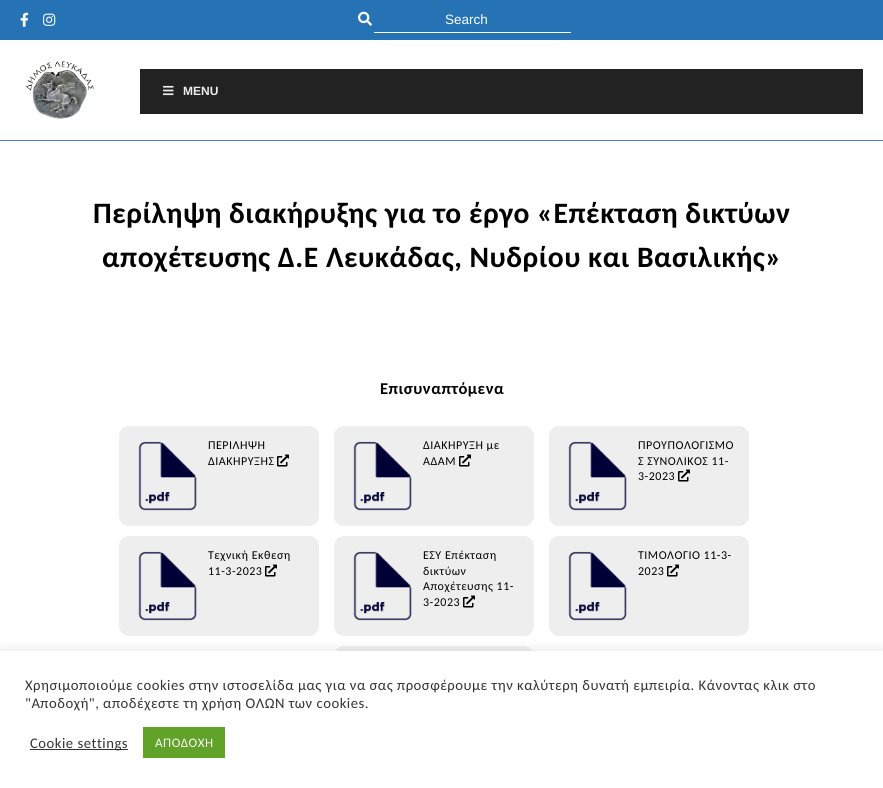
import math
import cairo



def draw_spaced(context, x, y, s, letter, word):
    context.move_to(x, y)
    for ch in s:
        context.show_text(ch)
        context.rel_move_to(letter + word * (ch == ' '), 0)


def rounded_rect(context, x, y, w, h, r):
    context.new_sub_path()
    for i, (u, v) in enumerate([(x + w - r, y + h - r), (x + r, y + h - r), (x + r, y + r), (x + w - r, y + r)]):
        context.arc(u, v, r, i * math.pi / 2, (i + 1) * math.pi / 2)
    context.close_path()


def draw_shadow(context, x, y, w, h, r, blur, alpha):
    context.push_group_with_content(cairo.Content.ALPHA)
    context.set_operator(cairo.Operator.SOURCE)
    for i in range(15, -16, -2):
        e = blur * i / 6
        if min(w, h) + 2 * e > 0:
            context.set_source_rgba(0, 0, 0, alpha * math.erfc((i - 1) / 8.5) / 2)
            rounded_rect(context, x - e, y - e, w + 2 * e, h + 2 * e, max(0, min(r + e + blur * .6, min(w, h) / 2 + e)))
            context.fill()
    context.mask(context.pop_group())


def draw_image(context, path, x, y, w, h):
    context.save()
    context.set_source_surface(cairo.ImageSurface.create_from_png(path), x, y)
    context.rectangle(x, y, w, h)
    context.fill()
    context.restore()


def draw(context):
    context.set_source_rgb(1, 1, 1)
    context.paint()
    context.set_source_rgb(37 / 255, 114 / 255, 181 / 255)
    context.rectangle(0, 0, 883, 40)
    context.fill()
    draw_image(context, "images/1.png", 20, 12, 9, 15)
    draw_image(context, "images/2.png", 43, 13, 13, 13)
    draw_image(context, "images/3.png", 358, 11, 14, 15)
    context.set_source_rgb(1, 1, 1)
    context.rectangle(374, 32, 197, 1)
    context.fill()
    context.set_source_rgb(80 / 255, 114 / 255, 237 / 255)
    context.rectangle(0, 140, 883, 1)
    context.fill()
    draw_image(context, "images/4.png", 25, 61, 69, 58)
    context.set_source_rgb(34 / 255, 34 / 255, 34 / 255)
    context.rectangle(140, 69, 723, 45)
    context.fill()
    draw_image(context, "images/5.png", 163, 85, 11, 11)
    context.set_source_rgb(238 / 255, 238 / 255, 238 / 255)
    rounded_rect(context, 119, 426, 200, 100, 10)
    context.fill()
    draw_image(context, "images/6.png", 138, 441, 59, 70)
    draw_image(context, "images/7.png", 277, 454, 12, 13)
    rounded_rect(context, 334, 426, 200, 100, 10)
    context.fill()
    draw_image(context, "images/8.png", 353, 441, 59, 70)
    draw_image(context, "images/7.png", 459, 454, 12, 13)
    rounded_rect(context, 549, 426, 200, 100, 10)
    context.fill()
    draw_image(context, "images/8.png", 568, 441, 59, 70)
    draw_image(context, "images/7.png", 678, 469, 12, 13)
    rounded_rect(context, 119, 536, 200, 100, 10)
    context.fill()
    draw_image(context, "images/9.png", 138, 551, 59, 70)
    draw_image(context, "images/7.png", 265, 564, 12, 13)
    rounded_rect(context, 334, 536, 200, 100, 10)
    context.fill()
    draw_image(context, "images/10.png", 353, 551, 59, 70)
    draw_image(context, "images/7.png", 463, 595, 12, 13)
    rounded_rect(context, 549, 536, 200, 100, 10)
    context.fill()
    draw_image(context, "images/10.png", 568, 551, 59, 70)
    draw_image(context, "images/7.png", 667, 564, 12, 13)
    rounded_rect(context, 334, 646, 200, 100, 10)
    context.fill()
    context.set_source_rgb(172 / 255, 171 / 255, 171 / 255)
    draw_shadow(context, 0, 650, 883, 137, 0, 5, 0.3)
    context.set_source_rgb(1, 1, 1)
    context.rectangle(0, 651, 883, 137)
    context.fill()
    context.set_source_rgb(51 / 255, 51 / 255, 51 / 255)
    context.rectangle(30, 749, 98, 1)
    context.fill()
    context.set_source_rgb(97 / 255, 162 / 255, 41 / 255)
    context.rectangle(143, 727, 82, 31)
    context.fill()
    context.select_font_face("Liberation Sans")
    context.set_font_size(13.5)
    context.set_source_rgb(1, 1, 1)
    context.move_to(445, 24)
    context.show_text("Search")
    context.select_font_face("Liberation Sans", cairo.FontSlant.NORMAL, cairo.FontWeight.BOLD)
    context.set_font_size(12)
    context.set_source_rgb(238 / 255, 238 / 255, 238 / 255)
    context.move_to(183, 95)
    context.show_text("MENU")
    context.select_font_face("Carlito", cairo.FontSlant.NORMAL, cairo.FontWeight.BOLD)
    context.set_font_size(29.6)
    context.set_source_rgb(0, 0, 0)
    draw_spaced(context, 93, 223, "Περίληψη διακήρυξης για το έργο «Επέκταση δικτύων", 0.5, 0)
    draw_spaced(context, 102, 267, "αποχέτευσης Δ.Ε Λευκάδας, Νυδρίου και Βασιλικής»", 0.5, 0)
    context.set_font_size(16.5)
    draw_spaced(context, 380, 394, "Επισυναπτόμενα", 0.5, 0)
    context.select_font_face("Carlito")
    context.set_font_size(12)
    draw_spaced(context, 208, 449, "ΠΕΡΙΛΗΨΗ", 0.5, 0)
    draw_spaced(context, 208, 465, "ΔΙΑΚΗΡΥΞΗΣ", 0.5, 0)
    draw_spaced(context, 423, 449, "ΔΙΑΚΗΡΥΞΗ με", 0.5, 0)
    draw_spaced(context, 423, 465, "ΑΔΑΜ", 0.5, 0)
    draw_spaced(context, 638, 449, "ΠΡΟΥΠΟΛΟΓΙΣΜΟ", 0.5, 0)
    draw_spaced(context, 638, 465, "Σ ΣΥΝΟΛΙΚΟΣ 11-", 0.5, 0)
    draw_spaced(context, 638, 480, "3-2023", 0.5, 0)
    draw_spaced(context, 208, 559, "Τεχνική Εκθεση", 0.5, 0)
    draw_spaced(context, 208, 575, "11-3-2023", 0.5, 0)
    draw_spaced(context, 423, 559, "ΕΣΥ Επέκταση", 0.5, 0)
    draw_spaced(context, 423, 575, "δικτύων", 0.5, 0)
    draw_spaced(context, 423, 590, "Αποχέτευσης 11-", 0.5, 0)
    draw_spaced(context, 423, 606, "3-2023", 0.5, 0)
    draw_spaced(context, 638, 559, "ΤΙΜΟΛΟΓΙΟ 11-3-", 0.5, 0)
    draw_spaced(context, 638, 575, "2023", 0.5, 0)
    context.set_font_size(14.67)
    context.set_source_rgb(51 / 255, 51 / 255, 51 / 255)
    draw_spaced(context, 25, 690, "Χρησιμοποιούμε cookies στην ιστοσελίδα μας για να σας προσφέρουμε την καλύτερη δυνατή εμπειρία. Κάνοντας κλικ στο", 0.5, 0)
    draw_spaced(context, 25, 708, "\"Αποδοχή\", αποδέχεστε τη χρήση ΟΛΩΝ των cookies.", 0.5, 0)
    draw_spaced(context, 30, 748, "Cookie settings", 0.5, 0)
    context.set_font_size(13)
    context.set_source_rgb(1, 1, 1)
    draw_spaced(context, 155, 747, "ΑΠΟΔΟΧΗ", 0.5, 0)


surface = cairo.ImageSurface(cairo.Format.RGB24, 883, 788)
context = cairo.Context(surface)
options = cairo.FontOptions()
options.set_hint_metrics(cairo.HintMetrics.OFF)
options.set_hint_style(cairo.HintStyle.NONE)
context.set_font_options(options)
context.set_miter_limit(4)
draw(context)
surface.write_to_png("out.png")
